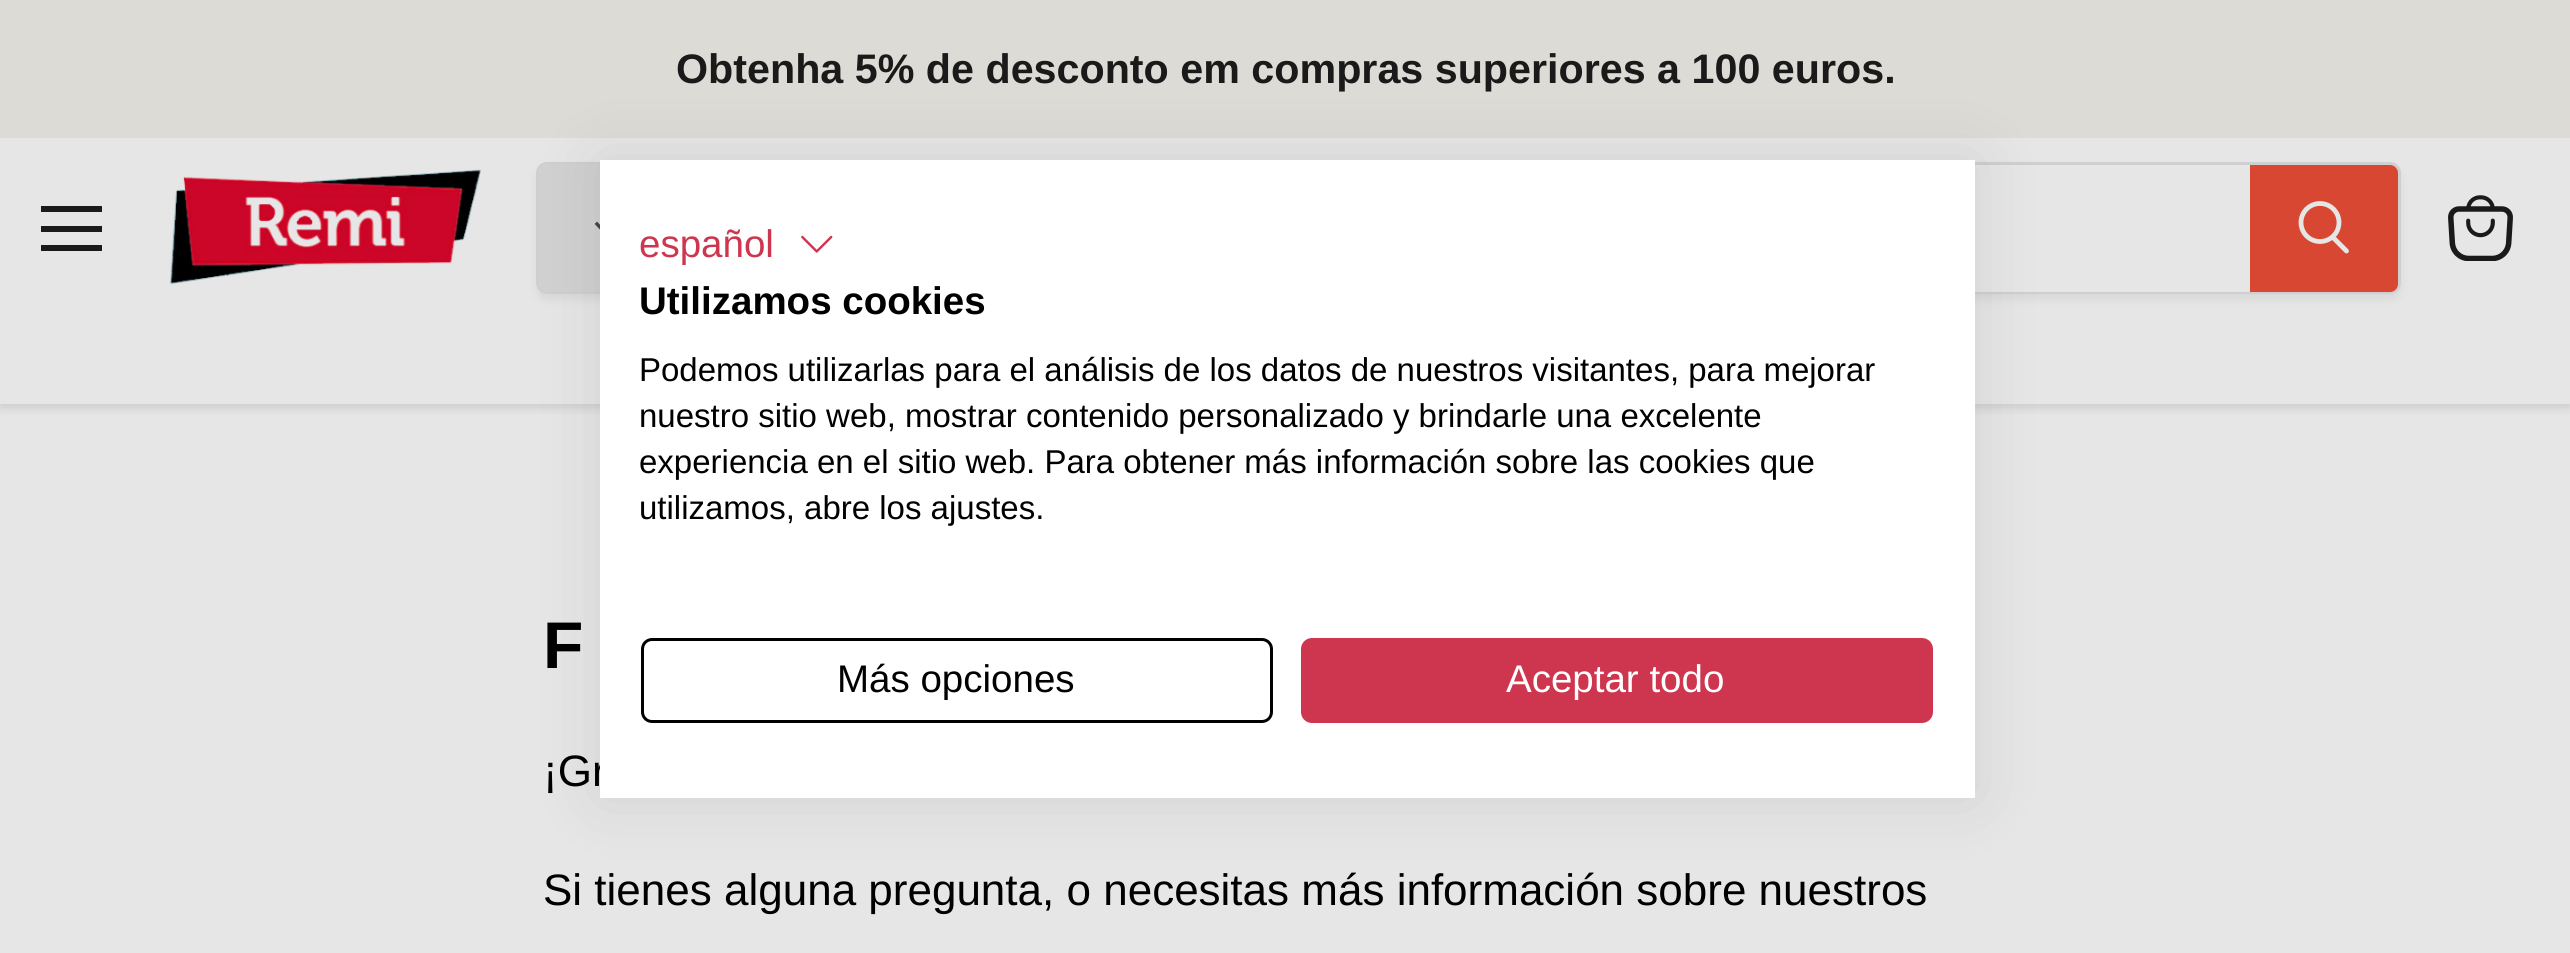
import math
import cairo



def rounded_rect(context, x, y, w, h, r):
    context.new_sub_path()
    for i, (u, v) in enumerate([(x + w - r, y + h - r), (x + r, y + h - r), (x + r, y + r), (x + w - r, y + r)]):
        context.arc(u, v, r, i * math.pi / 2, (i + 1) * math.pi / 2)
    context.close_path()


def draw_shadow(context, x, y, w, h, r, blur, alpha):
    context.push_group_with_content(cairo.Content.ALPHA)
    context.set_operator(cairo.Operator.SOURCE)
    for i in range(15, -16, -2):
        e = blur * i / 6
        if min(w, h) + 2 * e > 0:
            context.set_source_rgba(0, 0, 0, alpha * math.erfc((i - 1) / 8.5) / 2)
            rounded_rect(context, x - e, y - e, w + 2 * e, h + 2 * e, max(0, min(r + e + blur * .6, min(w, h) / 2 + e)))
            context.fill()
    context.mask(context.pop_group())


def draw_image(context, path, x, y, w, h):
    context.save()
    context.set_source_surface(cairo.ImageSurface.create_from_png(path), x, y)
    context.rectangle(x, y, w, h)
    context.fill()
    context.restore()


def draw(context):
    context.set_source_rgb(230 / 255, 230 / 255, 230 / 255)
    context.paint()
    context.save()
    context.rectangle(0, 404, 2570, 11)
    context.clip()
    context.set_source_rgb(115 / 255, 115 / 255, 115 / 255)
    draw_shadow(context, 0, 140, 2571, 267, 0, 5.5, 0.25)
    context.restore()
    context.set_source_rgb(221 / 255, 219 / 255, 213 / 255)
    context.rectangle(0, 0, 2570, 138)
    context.fill()
    context.set_source_rgb(26 / 255, 26 / 255, 26 / 255)
    context.rectangle(41, 206, 61, 6)
    context.fill()
    context.rectangle(41, 226, 61, 6)
    context.fill()
    context.rectangle(41, 245, 61, 6)
    context.fill()
    draw_image(context, "images/1.png", 169, 169, 312, 116)
    context.save()
    context.set_fill_rule(cairo.FillRule.EVEN_ODD)
    context.new_path()
    context.move_to(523, 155)
    context.line_to(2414, 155)
    context.line_to(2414, 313)
    context.line_to(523, 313)
    context.close_path()
    context.move_to(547, 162)
    context.line_to(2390, 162)
    context.curve_to(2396, 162, 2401, 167, 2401, 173)
    context.line_to(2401, 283)
    context.curve_to(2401, 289, 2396, 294, 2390, 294)
    context.line_to(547, 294)
    context.curve_to(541, 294, 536, 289, 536, 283)
    context.line_to(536, 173)
    context.curve_to(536, 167, 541, 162, 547, 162)
    context.close_path()
    context.clip()
    context.set_source_rgb(115 / 255, 115 / 255, 115 / 255)
    draw_shadow(context, 536, 168, 1865, 132, 11, 4, 0.11)
    context.restore()
    rounded_rect(context, 537.5, 163.5, 1862, 129, 9.5)
    context.set_source_rgba(115 / 255, 115 / 255, 115 / 255, 0.2)
    context.set_line_width(3)
    context.stroke()
    context.set_source_rgb(209 / 255, 209 / 255, 209 / 255)
    context.new_path()
    context.move_to(547, 165)
    context.line_to(644, 165)
    context.line_to(644, 292)
    context.line_to(547, 292)
    context.curve_to(542.5, 292, 539, 288.5, 539, 284)
    context.line_to(539, 173)
    context.curve_to(539, 168.5, 542.5, 165, 547, 165)
    context.close_path()
    context.fill()
    context.new_path()
    context.move_to(605, 232.5)
    context.line_to(597, 224)
    context.set_source_rgb(69 / 255, 69 / 255, 69 / 255)
    context.set_line_width(3.4)
    context.set_line_cap(cairo.LineCap.SQUARE)
    context.stroke()
    context.set_source_rgb(230 / 255, 230 / 255, 230 / 255)
    context.rectangle(1975, 291, 275, 1)
    context.fill()
    context.set_source_rgb(216 / 255, 71 / 255, 49 / 255)
    context.new_path()
    context.move_to(2251.5, 166.5)
    context.line_to(2390, 166.5)
    context.curve_to(2393.5, 166.5, 2396.5, 169.5, 2396.5, 173)
    context.line_to(2396.5, 284)
    context.curve_to(2396.5, 287.5, 2393.5, 290.5, 2390, 290.5)
    context.line_to(2251.5, 290.5)
    context.close_path()
    context.fill_preserve()
    context.set_line_width(3)
    context.set_line_cap(cairo.LineCap.BUTT)
    context.stroke()
    context.new_path()
    context.move_to(2346.5, 251)
    context.line_to(2333.5, 238)
    context.set_source_rgb(230 / 255, 230 / 255, 230 / 255)
    context.set_line_width(4.8)
    context.set_line_cap(cairo.LineCap.ROUND)
    context.stroke()
    context.arc(2320, 222.5, 19, 0, 2 * math.pi)
    context.set_line_cap(cairo.LineCap.BUTT)
    context.stroke()
    draw_image(context, "images/2.png", 2448, 195, 65, 66)
    context.set_source_rgb(0, 0, 0)
    draw_shadow(context, 600, 160, 1375, 638, 0, 33, 0.1)
    context.select_font_face("Liberation Sans", cairo.FontSlant.NORMAL, cairo.FontWeight.BOLD)
    context.set_font_size(41.25)
    context.set_source_rgb(26 / 255, 26 / 255, 26 / 255)
    context.move_to(676, 83)
    context.show_text("Obtenha 5% de desconto em compras superiores a 100 euros.")
    context.set_font_size(66)
    context.set_source_rgb(0, 0, 0)
    context.move_to(543, 668)
    context.show_text("F")
    context.select_font_face("Liberation Sans")
    context.set_font_size(44)
    context.move_to(543, 786)
    context.show_text("¡Gr")
    context.set_source_rgb(1, 1, 1)
    context.rectangle(600, 160, 1375, 638)
    context.fill()
    context.set_source_rgb(206 / 255, 53 / 255, 79 / 255)
    rounded_rect(context, 1302.5, 639.5, 629, 82, 9.5)
    context.fill_preserve()
    context.set_line_width(3)
    context.stroke()
    context.set_font_size(38.5)
    context.set_source_rgb(1, 1, 1)
    context.move_to(1506, 692)
    context.show_text("Aceptar todo")
    rounded_rect(context, 642.5, 639.5, 629, 82, 9.5)
    context.set_source_rgb(0, 0, 0)
    context.stroke()
    context.move_to(837, 692)
    context.show_text("Más opciones")
    context.set_font_size(33)
    context.move_to(639, 519)
    context.show_text("utilizamos, abre los ajustes.")
    context.move_to(639, 473)
    context.show_text("experiencia en el sitio web. Para obtener más información sobre las cookies que")
    context.move_to(639, 427)
    context.show_text("nuestro sitio web, mostrar contenido personalizado y brindarle una excelente")
    context.move_to(639, 381)
    context.show_text("Podemos utilizarlas para el análisis de los datos de nuestros visitantes, para mejorar")
    context.select_font_face("Liberation Sans", cairo.FontSlant.NORMAL, cairo.FontWeight.BOLD)
    context.set_font_size(38.5)
    context.move_to(639, 314)
    context.show_text("Utilizamos cookies")
    draw_image(context, "images/3.png", 801, 235, 32, 18)
    context.select_font_face("Liberation Sans")
    context.set_source_rgb(206 / 255, 53 / 255, 79 / 255)
    context.move_to(639, 257)
    context.show_text("español")
    context.set_font_size(44)
    context.set_source_rgb(0, 0, 0)
    context.move_to(543, 905)
    context.show_text("Si tienes alguna pregunta, o necesitas más información sobre nuestros")


surface = cairo.ImageSurface(cairo.Format.RGB24, 2570, 953)
context = cairo.Context(surface)
options = cairo.FontOptions()
options.set_hint_metrics(cairo.HintMetrics.OFF)
options.set_hint_style(cairo.HintStyle.NONE)
context.set_font_options(options)
context.set_miter_limit(4)
draw(context)
surface.write_to_png("out.png")
